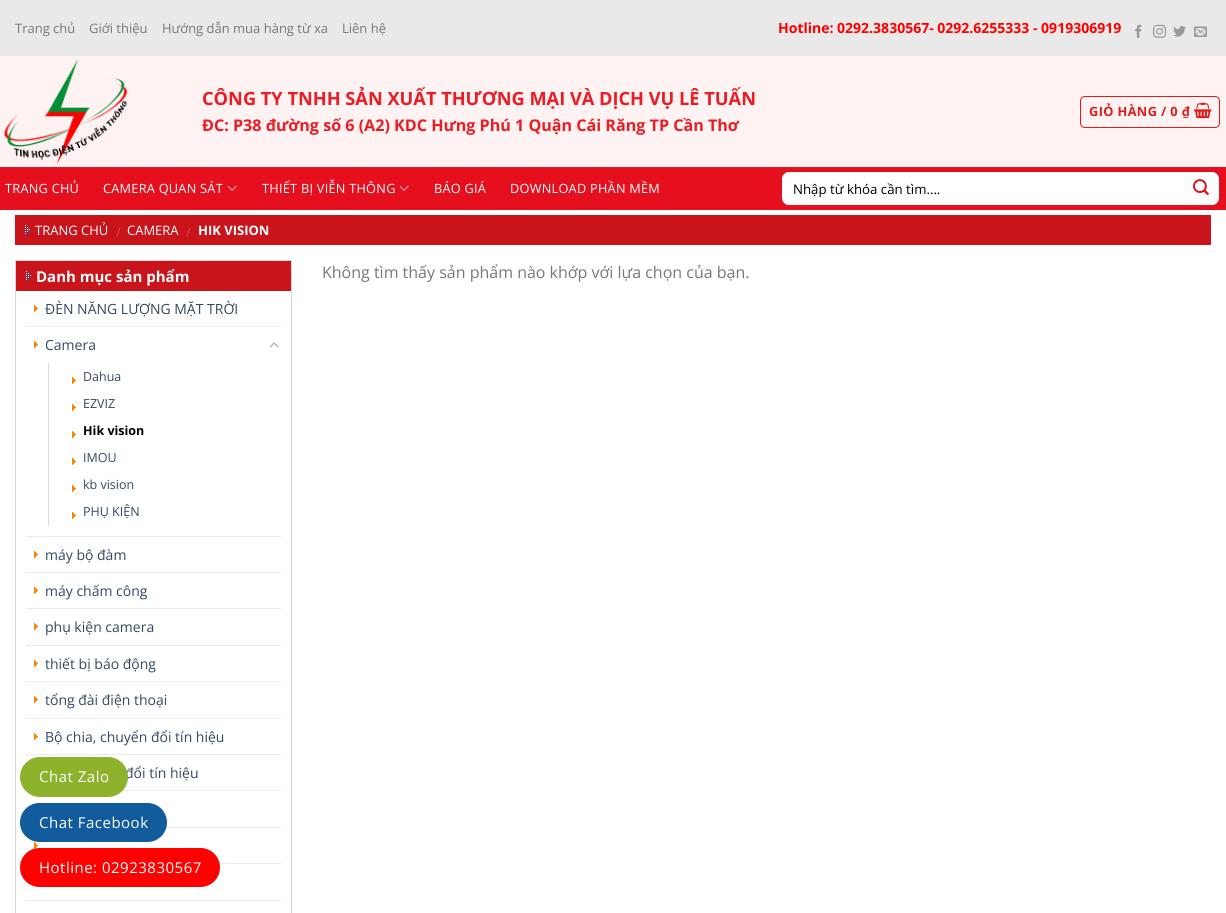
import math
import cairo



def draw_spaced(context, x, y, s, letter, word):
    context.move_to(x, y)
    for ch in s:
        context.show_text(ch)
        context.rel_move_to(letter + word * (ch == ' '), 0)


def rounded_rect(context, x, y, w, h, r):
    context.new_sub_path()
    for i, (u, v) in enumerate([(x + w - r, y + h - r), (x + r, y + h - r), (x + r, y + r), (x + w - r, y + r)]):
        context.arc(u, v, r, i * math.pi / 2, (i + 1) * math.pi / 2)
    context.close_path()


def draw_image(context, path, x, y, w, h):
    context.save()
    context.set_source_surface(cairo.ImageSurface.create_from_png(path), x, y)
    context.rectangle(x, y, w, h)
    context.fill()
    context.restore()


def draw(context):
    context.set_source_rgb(1, 1, 1)
    context.paint()
    context.set_source_rgb(233 / 255, 233 / 255, 233 / 255)
    context.rectangle(0, 0, 1226, 56)
    context.fill()
    draw_image(context, "images/1.png", 1135, 24, 7, 14)
    draw_image(context, "images/2.png", 1153, 24, 13, 14)
    draw_image(context, "images/3.png", 1173, 26, 13, 11)
    draw_image(context, "images/4.png", 1194, 26, 13, 11)
    context.set_source_rgb(1, 242 / 255, 242 / 255)
    context.rectangle(0, 56, 1226, 111)
    context.fill()
    draw_image(context, "images/5.png", 3, 59, 125, 106)
    rounded_rect(context, 1080.5, 96.5, 139, 31, 4.5)
    context.set_source_rgb(221 / 255, 28 / 255, 28 / 255)
    context.set_line_width(1)
    context.stroke()
    draw_image(context, "images/6.png", 1194, 102, 18, 17)
    context.set_source_rgb(230 / 255, 15 / 255, 30 / 255)
    context.rectangle(0, 167, 1226, 43)
    context.fill()
    context.set_source_rgb(219 / 255, 25 / 255, 39 / 255)
    context.rectangle(15, 167, 1196, 1)
    context.fill()
    draw_image(context, "images/7.png", 227, 185, 10, 6)
    draw_image(context, "images/7.png", 399, 185, 10, 6)
    context.set_source_rgb(1, 1, 1)
    rounded_rect(context, 782, 172, 437, 33, 7)
    context.fill()
    rounded_rect(context, 782.5, 172.5, 436, 32, 6.5)
    context.set_source_rgba(1, 1, 1, 0.09)
    context.stroke()
    draw_image(context, "images/8.png", 1193, 179, 16, 16)
    context.set_source_rgb(201 / 255, 20 / 255, 27 / 255)
    context.rectangle(15, 215, 1196, 30)
    context.fill()
    draw_image(context, "images/9.png", 25, 225, 6, 10)
    context.rectangle(15.5, 260.5, 276, 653)
    context.set_source_rgb(213 / 255, 213 / 255, 213 / 255)
    context.stroke()
    context.set_source_rgb(201 / 255, 20 / 255, 27 / 255)
    context.rectangle(16, 261, 275, 30)
    context.fill()
    draw_image(context, "images/9.png", 26, 271, 6, 10)
    draw_image(context, "images/10.png", 34, 305, 4, 7)
    draw_image(context, "images/10.png", 34, 341, 4, 7)
    context.set_source_rgb(236 / 255, 236 / 255, 236 / 255)
    context.rectangle(26, 326, 255, 1)
    context.fill()
    draw_image(context, "images/11.png", 269, 342, 10, 6)
    context.set_source_rgb(221 / 255, 221 / 255, 221 / 255)
    context.rectangle(48, 363, 1, 163)
    context.fill()
    draw_image(context, "images/10.png", 72, 377, 4, 7)
    draw_image(context, "images/10.png", 72, 404, 4, 7)
    draw_image(context, "images/10.png", 72, 431, 4, 7)
    draw_image(context, "images/10.png", 72, 458, 4, 7)
    draw_image(context, "images/10.png", 72, 485, 4, 7)
    draw_image(context, "images/10.png", 72, 512, 4, 7)
    draw_image(context, "images/10.png", 34, 551, 4, 7)
    context.set_source_rgb(236 / 255, 236 / 255, 236 / 255)
    context.rectangle(26, 536, 255, 1)
    context.fill()
    draw_image(context, "images/10.png", 34, 587, 4, 7)
    context.rectangle(26, 572, 255, 1)
    context.fill()
    draw_image(context, "images/10.png", 34, 623, 4, 7)
    context.rectangle(26, 608, 255, 1)
    context.fill()
    draw_image(context, "images/10.png", 34, 660, 4, 7)
    context.rectangle(26, 645, 255, 1)
    context.fill()
    draw_image(context, "images/10.png", 34, 696, 4, 7)
    context.rectangle(26, 681, 255, 1)
    context.fill()
    draw_image(context, "images/10.png", 34, 733, 4, 7)
    context.rectangle(26, 718, 255, 1)
    context.fill()
    context.rectangle(26, 754, 255, 1)
    context.fill()
    context.rectangle(122, 790, 159, 1)
    context.fill()
    draw_image(context, "images/10.png", 34, 842, 4, 7)
    context.rectangle(166, 827, 115, 1)
    context.fill()
    context.rectangle(219, 863, 62, 1)
    context.fill()
    context.rectangle(26, 900, 255, 1)
    context.fill()
    context.set_source_rgb(18 / 255, 92 / 255, 158 / 255)
    rounded_rect(context, 20, 803, 147, 39, 19.5)
    context.fill()
    context.set_source_rgb(1, 0, 0)
    rounded_rect(context, 20, 848, 200, 39, 19.5)
    context.fill()
    context.select_font_face("Open Sans")
    context.set_font_size(13)
    context.set_source_rgb(119 / 255, 119 / 255, 119 / 255)
    context.move_to(15, 33)
    context.show_text("Trang chủ")
    context.move_to(89, 33)
    context.show_text("Giới thiệu")
    context.move_to(162, 33)
    context.show_text("Hướng dẫn mua hàng từ xa")
    context.move_to(342, 33)
    context.show_text("Liên hệ")
    context.select_font_face("Open Sans", cairo.FontSlant.NORMAL, cairo.FontWeight.BOLD)
    context.set_font_size(14)
    context.set_source_rgb(1, 0, 0)
    context.move_to(778, 33)
    context.show_text("Hotline: 0292.3830567- 0292.6255333 - 0919306919")
    context.set_font_size(18.2)
    context.set_source_rgb(237 / 255, 28 / 255, 36 / 255)
    context.move_to(202, 105)
    context.show_text("CÔNG TY TNHH SẢN XUẤT THƯƠNG MẠI VÀ DỊCH VỤ LÊ TUẤN")
    context.set_font_size(16.1)
    context.move_to(202, 131)
    context.show_text("ĐC: P38 đường số 6 (A2) KDC Hưng Phú 1 Quận Cái Răng TP Cần Thơ")
    context.set_font_size(12.75)
    context.set_source_rgb(221 / 255, 28 / 255, 28 / 255)
    draw_spaced(context, 1089, 116, "GIỎ HÀNG / 0 ₫", 0.4, 0)
    context.select_font_face("Open Sans")
    context.set_source_rgb(1, 1, 1)
    draw_spaced(context, 5, 193, "TRANG CHỦ", 0.25, 0)
    draw_spaced(context, 103, 193, "CAMERA QUAN SÁT", 0.25, 0)
    draw_spaced(context, 262, 193, "THIẾT BỊ VIỄN THÔNG", 0.25, 0)
    draw_spaced(context, 434, 193, "BÁO GIÁ", 0.25, 0)
    draw_spaced(context, 510, 193, "DOWNLOAD PHẦN MỀM", 0.25, 0)
    context.set_font_size(13.25)
    context.set_source_rgb(0, 0, 0)
    context.move_to(793, 194)
    context.show_text("Nhập từ khóa cần tìm....")
    context.set_font_size(13)
    context.set_source_rgb(1, 1, 1)
    context.move_to(35, 235)
    context.show_text("TRANG CHỦ")
    context.select_font_face("Open Sans Light")
    context.set_source_rgb(220 / 255, 102 / 255, 107 / 255)
    context.move_to(116, 237)
    context.show_text("/")
    context.select_font_face("Open Sans")
    context.set_source_rgb(1, 1, 1)
    context.move_to(127, 235)
    context.show_text("CAMERA")
    context.select_font_face("Open Sans Light")
    context.set_source_rgb(220 / 255, 102 / 255, 107 / 255)
    context.move_to(186, 237)
    context.show_text("/")
    context.select_font_face("Open Sans", cairo.FontSlant.NORMAL, cairo.FontWeight.BOLD)
    context.set_source_rgb(1, 1, 1)
    context.move_to(198, 235)
    context.show_text("HIK VISION")
    context.set_font_size(15)
    context.move_to(36, 282)
    context.show_text("Danh mục sản phẩm")
    context.select_font_face("Open Sans")
    context.set_font_size(14)
    context.set_source_rgb(51 / 255, 72 / 255, 98 / 255)
    context.move_to(45, 314)
    context.show_text("ĐÈN NĂNG LƯỢNG MẶT TRỜI")
    context.move_to(45, 350)
    context.show_text("Camera")
    context.set_font_size(12.5)
    context.move_to(83, 381)
    context.show_text("Dahua")
    context.move_to(83, 408)
    context.show_text("EZVIZ")
    context.select_font_face("Open Sans", cairo.FontSlant.NORMAL, cairo.FontWeight.BOLD)
    context.set_source_rgb(0, 0, 0)
    context.move_to(83, 435)
    context.show_text("Hik vision")
    context.select_font_face("Open Sans")
    context.set_source_rgb(51 / 255, 72 / 255, 98 / 255)
    context.move_to(83, 462)
    context.show_text("IMOU")
    context.move_to(83, 489)
    context.show_text("kb vision")
    context.move_to(83, 516)
    context.show_text("PHỤ KIỆN")
    context.set_font_size(14)
    context.move_to(45, 560)
    context.show_text("máy bộ đàm")
    context.move_to(45, 596)
    context.show_text("máy chấm công")
    context.move_to(45, 632)
    context.show_text("phụ kiện camera")
    context.move_to(45, 669)
    context.show_text("thiết bị báo động")
    context.move_to(45, 705)
    context.show_text("tổng đài điện thoại")
    context.move_to(45, 742)
    context.show_text("Bộ chia, chuyển đổi tín hiệu")
    context.move_to(125, 778)
    context.show_text("đổi tín hiệu")
    context.set_font_size(16)
    context.set_source_rgb(119 / 255, 119 / 255, 119 / 255)
    context.move_to(322, 278)
    context.show_text("Không tìm thấy sản phẩm nào khớp với lựa chọn của bạn.")
    context.set_source_rgb(142 / 255, 178 / 255, 43 / 255)
    rounded_rect(context, 20, 757, 108, 40, 20)
    context.fill()
    context.set_font_size(15)
    context.set_source_rgb(1, 1, 1)
    draw_spaced(context, 39, 782, "Chat Zalo", 0.5, 0)
    draw_spaced(context, 39, 828, "Chat Facebook", 0.5, 0)
    draw_spaced(context, 39, 873, "Hotline: 02923830567", 0.5, 0)


surface = cairo.ImageSurface(cairo.Format.RGB24, 1226, 913)
context = cairo.Context(surface)
options = cairo.FontOptions()
options.set_hint_metrics(cairo.HintMetrics.OFF)
options.set_hint_style(cairo.HintStyle.NONE)
context.set_font_options(options)
context.set_miter_limit(4)
draw(context)
surface.write_to_png("out.png")
